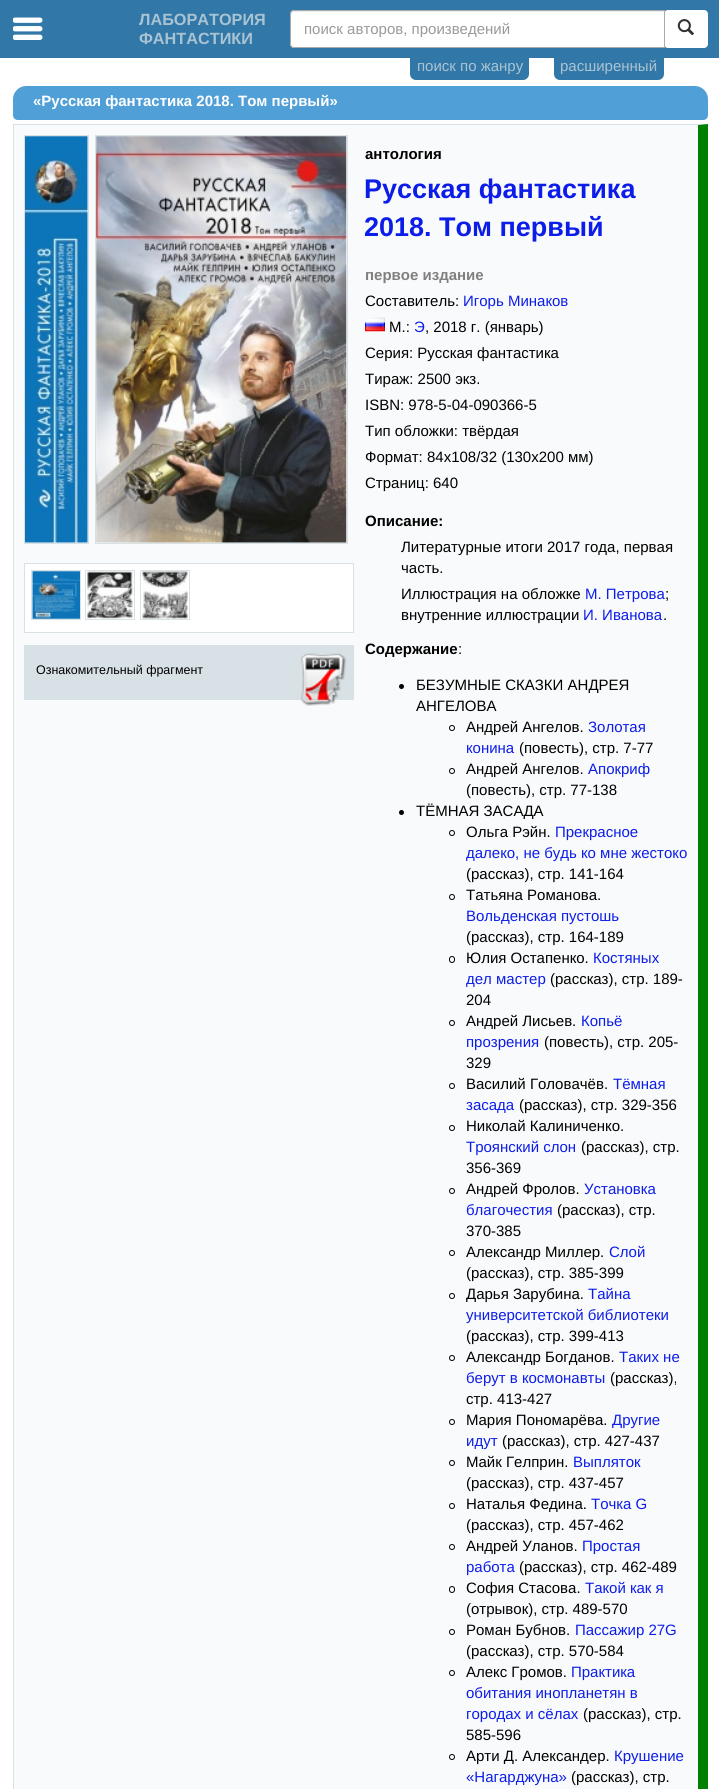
import math
import cairo



def rounded_rect(context, x, y, w, h, r):
    context.new_sub_path()
    for i, (u, v) in enumerate([(x + w - r, y + h - r), (x + r, y + h - r), (x + r, y + r), (x + w - r, y + r)]):
        context.arc(u, v, r, i * math.pi / 2, (i + 1) * math.pi / 2)
    context.close_path()


def draw_image(context, path, x, y, w, h):
    context.save()
    context.set_source_surface(cairo.ImageSurface.create_from_png(path), x, y)
    context.rectangle(x, y, w, h)
    context.fill()
    context.restore()


def draw(context):
    context.set_source_rgb(1, 1, 1)
    context.paint()
    context.set_source_rgb(49 / 255, 120 / 255, 168 / 255)
    context.rectangle(0, 0, 719, 58)
    context.fill()
    draw_image(context, "images/1.png", 13, 17, 30, 23)
    context.set_source_rgb(1, 1, 1)
    rounded_rect(context, 664, 10, 44, 38, 4)
    context.fill()
    context.new_path()
    context.move_to(294, 10)
    context.line_to(665, 10)
    context.line_to(665, 48)
    context.line_to(294, 48)
    context.curve_to(292, 48, 290, 46, 290, 44)
    context.line_to(290, 14)
    context.curve_to(290, 12, 292, 10, 294, 10)
    context.close_path()
    context.fill()
    context.set_source_rgb(236 / 255, 236 / 255, 236 / 255)
    context.new_path()
    context.move_to(294, 12)
    context.line_to(664, 12)
    context.line_to(664, 11)
    context.line_to(294, 11)
    context.curve_to(291, 11, 291, 13, 291, 15)
    context.curve_to(291, 14, 292, 12, 294, 12)
    context.close_path()
    context.fill()
    context.new_path()
    context.move_to(294, 10.5)
    context.line_to(664.5, 10.5)
    context.line_to(664.5, 47.5)
    context.line_to(294, 47.5)
    context.curve_to(292, 47.5, 290.5, 46, 290.5, 44)
    context.line_to(290.5, 14)
    context.curve_to(290.5, 12, 292, 10.5, 294, 10.5)
    context.close_path()
    context.set_source_rgb(170 / 255, 170 / 255, 170 / 255)
    context.set_line_width(1)
    context.stroke()
    draw_image(context, "images/2.png", 677, 19, 17, 17)
    context.set_source_rgb(49 / 255, 120 / 255, 168 / 255)
    rounded_rect(context, 410, 50, 119, 30, 6)
    context.fill()
    rounded_rect(context, 554, 50, 110, 30, 6)
    context.fill()
    context.set_source_rgb(80 / 255, 160 / 255, 215 / 255)
    context.new_path()
    context.move_to(26, 86)
    context.line_to(695, 86)
    context.curve_to(702, 86, 708, 92, 708, 99)
    context.line_to(708, 115)
    context.curve_to(708, 118, 706, 120, 703, 120)
    context.line_to(18, 120)
    context.curve_to(15, 120, 13, 118, 13, 115)
    context.line_to(13, 99)
    context.curve_to(13, 92, 19, 86, 26, 86)
    context.close_path()
    context.fill()
    context.set_source_rgb(249 / 255, 250 / 255, 251 / 255)
    context.rectangle(14, 125, 684, 1664)
    context.fill()
    context.set_source_rgb(216 / 255, 225 / 255, 230 / 255)
    context.new_path()
    context.move_to(12, 124)
    context.line_to(708, 124)
    context.line_to(698, 125)
    context.line_to(14, 125)
    context.close_path()
    context.fill()
    context.set_source_rgb(0, 128 / 255, 0)
    context.new_path()
    context.move_to(708, 124)
    context.line_to(708, 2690)
    context.line_to(698, 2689)
    context.line_to(698, 125)
    context.close_path()
    context.fill()
    context.set_source_rgb(216 / 255, 225 / 255, 230 / 255)
    context.rectangle(13, 124, 1, 1665)
    context.fill()
    context.rectangle(24.5, 135.5, 64, 408)
    context.stroke()
    context.rectangle(95.5, 135.5, 252, 408)
    context.stroke()
    draw_image(context, "images/3.png", 25, 136, 63, 407)
    draw_image(context, "images/4.png", 96, 136, 251, 407)
    context.set_source_rgb(1, 1, 1)
    context.rectangle(24.5, 563.5, 329, 69)
    context.fill_preserve()
    context.set_source_rgb(216 / 255, 225 / 255, 230 / 255)
    context.stroke()
    context.rectangle(31.5, 570.5, 49, 49)
    context.stroke()
    context.rectangle(85.5, 570.5, 49, 49)
    context.stroke()
    context.rectangle(140.5, 570.5, 49, 49)
    context.stroke()
    draw_image(context, "images/5.png", 32, 571, 48, 48)
    draw_image(context, "images/6.png", 86, 571, 48, 48)
    draw_image(context, "images/7.png", 142, 571, 46, 48)
    context.rectangle(24, 645, 330, 55)
    context.fill()
    draw_image(context, "images/8.png", 301, 653, 46, 53)
    draw_image(context, "images/9.png", 365, 317, 20, 15)
    context.set_source_rgb(0, 0, 0)
    context.arc(401.5, 686.5, 2.5, 0, 2 * math.pi)
    context.fill()
    context.arc(452, 728, 2.5, 0, 2 * math.pi)
    context.stroke()
    context.arc(452, 771, 2.5, 0, 2 * math.pi)
    context.stroke()
    context.arc(401.5, 812.5, 2.5, 0, 2 * math.pi)
    context.fill()
    context.arc(452, 833, 2.5, 0, 2 * math.pi)
    context.stroke()
    context.arc(452, 897, 2.5, 0, 2 * math.pi)
    context.stroke()
    rounded_rect(context, 449.5, 956.5, 5, 6, 2.5)
    context.stroke()
    context.arc(452, 1023, 2.5, 0, 2 * math.pi)
    context.stroke()
    context.arc(452, 1086, 2.5, 0, 2 * math.pi)
    context.stroke()
    context.arc(452, 1128, 2.5, 0, 2 * math.pi)
    context.stroke()
    context.arc(452, 1191, 2.5, 0, 2 * math.pi)
    context.stroke()
    context.arc(452, 1253, 2.5, 0, 2 * math.pi)
    context.stroke()
    context.arc(452, 1296, 2.5, 0, 2 * math.pi)
    context.stroke()
    context.arc(452, 1358, 2.5, 0, 2 * math.pi)
    context.stroke()
    context.arc(452, 1422, 2.5, 0, 2 * math.pi)
    context.stroke()
    context.arc(452, 1463, 2.5, 0, 2 * math.pi)
    context.stroke()
    context.arc(452, 1506, 2.5, 0, 2 * math.pi)
    context.stroke()
    context.arc(452, 1547, 2.5, 0, 2 * math.pi)
    context.stroke()
    rounded_rect(context, 449.5, 1586.5, 5, 6, 2.5)
    context.stroke()
    context.arc(452, 1632, 2.5, 0, 2 * math.pi)
    context.stroke()
    context.arc(452, 1673, 2.5, 0, 2 * math.pi)
    context.stroke()
    context.arc(452, 1757, 2.5, 0, 2 * math.pi)
    context.stroke()
    context.select_font_face("Liberation Sans", cairo.FontSlant.NORMAL, cairo.FontWeight.BOLD)
    context.set_font_size(16.25)
    context.set_source_rgb(169 / 255, 195 / 255, 211 / 255)
    context.move_to(139, 25)
    context.show_text("ЛАБОРАТОРИЯ")
    context.move_to(139, 44)
    context.show_text("ФАНТАСТИКИ")
    context.select_font_face("Liberation Sans")
    context.set_font_size(15)
    context.set_source_rgb(153 / 255, 153 / 255, 153 / 255)
    context.move_to(304, 34)
    context.show_text("поиск авторов, произведений")
    context.set_source_rgb(169 / 255, 195 / 255, 211 / 255)
    context.move_to(417, 71)
    context.show_text("поиск по жанру")
    context.move_to(560, 71)
    context.show_text("расширенный")
    context.select_font_face("Liberation Sans", cairo.FontSlant.NORMAL, cairo.FontWeight.BOLD)
    context.set_source_rgb(1, 1, 1)
    context.move_to(33, 106)
    context.show_text("«Русская фантастика 2018. Том первый»")
    context.select_font_face("Liberation Sans")
    context.set_font_size(12.5)
    context.set_source_rgb(0, 0, 0)
    context.move_to(36, 674)
    context.show_text("Ознакомительный фрагмент")
    context.select_font_face("Liberation Sans", cairo.FontSlant.NORMAL, cairo.FontWeight.BOLD)
    context.set_font_size(15)
    context.move_to(365, 159)
    context.show_text("антология")
    context.set_font_size(27)
    context.set_source_rgb(12 / 255, 29 / 255, 233 / 255)
    context.move_to(364, 198)
    context.show_text("Русская фантастика")
    context.move_to(364, 236)
    context.show_text("2018. Том первый")
    context.set_font_size(15)
    context.set_source_rgb(128 / 255, 128 / 255, 128 / 255)
    context.move_to(365, 280)
    context.show_text("первое издание")
    context.select_font_face("Liberation Sans")
    context.set_source_rgb(0, 0, 0)
    context.move_to(365, 306)
    context.show_text("Составитель:")
    context.set_source_rgb(12 / 255, 29 / 255, 233 / 255)
    context.move_to(463, 306)
    context.show_text("Игорь Минаков")
    context.set_source_rgb(0, 0, 0)
    context.move_to(389, 332)
    context.show_text("М.:")
    context.set_source_rgb(12 / 255, 29 / 255, 233 / 255)
    context.move_to(414, 332)
    context.show_text("Э")
    context.set_source_rgb(0, 0, 0)
    context.move_to(425, 332)
    context.show_text(", 2018 г. (январь)")
    context.move_to(365, 358)
    context.show_text("Серия: Русская фантастика")
    context.move_to(365, 384)
    context.show_text("Тираж: 2500 экз.")
    context.move_to(365, 410)
    context.show_text("ISBN: 978-5-04-090366-5")
    context.move_to(365, 436)
    context.show_text("Тип обложки: твёрдая")
    context.move_to(365, 462)
    context.show_text("Формат: 84x108/32 (130x200 мм)")
    context.move_to(365, 488)
    context.show_text("Страниц: 640")
    context.select_font_face("Liberation Sans", cairo.FontSlant.NORMAL, cairo.FontWeight.BOLD)
    context.move_to(365, 526)
    context.show_text("Описание:")
    context.select_font_face("Liberation Sans")
    context.move_to(401, 552)
    context.show_text("Литературные итоги 2017 года, первая")
    context.move_to(401, 573)
    context.show_text("часть.")
    context.move_to(401, 599)
    context.show_text("Иллюстрация на обложке")
    context.set_source_rgb(12 / 255, 29 / 255, 233 / 255)
    context.move_to(585, 599)
    context.show_text("М. Петрова")
    context.set_source_rgb(0, 0, 0)
    context.move_to(665, 599)
    context.show_text(";")
    context.move_to(401, 620)
    context.show_text("внутренние иллюстрации")
    context.set_source_rgb(12 / 255, 29 / 255, 233 / 255)
    context.move_to(583, 620)
    context.show_text("И. Иванова")
    context.set_source_rgb(0, 0, 0)
    context.move_to(663, 620)
    context.show_text(".")
    context.select_font_face("Liberation Sans", cairo.FontSlant.NORMAL, cairo.FontWeight.BOLD)
    context.move_to(365, 654)
    context.show_text("Содержание")
    context.select_font_face("Liberation Sans")
    context.move_to(458, 654)
    context.show_text(":")
    context.move_to(416, 690)
    context.show_text("БЕЗУМНЫЕ СКАЗКИ АНДРЕЯ")
    context.move_to(416, 711)
    context.show_text("АНГЕЛОВА")
    context.move_to(466, 732)
    context.show_text("Андрей Ангелов.")
    context.set_source_rgb(12 / 255, 29 / 255, 233 / 255)
    context.move_to(588, 732)
    context.show_text("Золотая")
    context.move_to(466, 753)
    context.show_text("конина")
    context.set_source_rgb(0, 0, 0)
    context.move_to(519, 753)
    context.show_text("(повесть), стр. 7-77")
    context.move_to(466, 774)
    context.show_text("Андрей Ангелов.")
    context.set_source_rgb(12 / 255, 29 / 255, 233 / 255)
    context.move_to(588, 774)
    context.show_text("Апокриф")
    context.set_source_rgb(0, 0, 0)
    context.move_to(466, 795)
    context.show_text("(повесть), стр. 77-138")
    context.move_to(416, 816)
    context.show_text("ТЁМНАЯ ЗАСАДА")
    context.move_to(466, 837)
    context.show_text("Ольга Рэйн.")
    context.set_source_rgb(12 / 255, 29 / 255, 233 / 255)
    context.move_to(555, 837)
    context.show_text("Прекрасное")
    context.move_to(466, 858)
    context.show_text("далеко, не будь ко мне жестоко")
    context.set_source_rgb(0, 0, 0)
    context.move_to(466, 879)
    context.show_text("(рассказ), стр. 141-164")
    context.move_to(466, 900)
    context.show_text("Татьяна Романова.")
    context.set_source_rgb(12 / 255, 29 / 255, 233 / 255)
    context.move_to(466, 921)
    context.show_text("Вольденская пустошь")
    context.set_source_rgb(0, 0, 0)
    context.move_to(466, 942)
    context.show_text("(рассказ), стр. 164-189")
    context.move_to(466, 963)
    context.show_text("Юлия Остапенко.")
    context.set_source_rgb(12 / 255, 29 / 255, 233 / 255)
    context.move_to(593, 963)
    context.show_text("Костяных")
    context.move_to(466, 984)
    context.show_text("дел мастер")
    context.set_source_rgb(0, 0, 0)
    context.move_to(550, 984)
    context.show_text("(рассказ), стр. 189-")
    context.move_to(466, 1005)
    context.show_text("204")
    context.move_to(466, 1026)
    context.show_text("Андрей Лисьев.")
    context.set_source_rgb(12 / 255, 29 / 255, 233 / 255)
    context.move_to(581, 1026)
    context.show_text("Копьё")
    context.move_to(466, 1047)
    context.show_text("прозрения")
    context.set_source_rgb(0, 0, 0)
    context.move_to(544, 1047)
    context.show_text("(повесть), стр. 205-")
    context.move_to(466, 1068)
    context.show_text("329")
    context.move_to(466, 1089)
    context.show_text("Василий Головачёв.")
    context.set_source_rgb(12 / 255, 29 / 255, 233 / 255)
    context.move_to(613, 1089)
    context.show_text("Тёмная")
    context.move_to(466, 1110)
    context.show_text("засада")
    context.set_source_rgb(0, 0, 0)
    context.move_to(519, 1110)
    context.show_text("(рассказ), стр. 329-356")
    context.move_to(466, 1131)
    context.show_text("Николай Калиниченко.")
    context.set_source_rgb(12 / 255, 29 / 255, 233 / 255)
    context.move_to(466, 1152)
    context.show_text("Троянский слон")
    context.set_source_rgb(0, 0, 0)
    context.move_to(581, 1152)
    context.show_text("(рассказ), стр.")
    context.move_to(466, 1173)
    context.show_text("356-369")
    context.move_to(466, 1194)
    context.show_text("Андрей Фролов.")
    context.set_source_rgb(12 / 255, 29 / 255, 233 / 255)
    context.move_to(584, 1194)
    context.show_text("Установка")
    context.move_to(466, 1215)
    context.show_text("благочестия")
    context.set_source_rgb(0, 0, 0)
    context.move_to(557, 1215)
    context.show_text("(рассказ), стр.")
    context.move_to(466, 1236)
    context.show_text("370-385")
    context.move_to(466, 1257)
    context.show_text("Александр Миллер.")
    context.set_source_rgb(12 / 255, 29 / 255, 233 / 255)
    context.move_to(609, 1257)
    context.show_text("Слой")
    context.set_source_rgb(0, 0, 0)
    context.move_to(466, 1278)
    context.show_text("(рассказ), стр. 385-399")
    context.move_to(466, 1299)
    context.show_text("Дарья Зарубина.")
    context.set_source_rgb(12 / 255, 29 / 255, 233 / 255)
    context.move_to(588, 1299)
    context.show_text("Тайна")
    context.move_to(466, 1320)
    context.show_text("университетской библиотеки")
    context.set_source_rgb(0, 0, 0)
    context.move_to(466, 1341)
    context.show_text("(рассказ), стр. 399-413")
    context.move_to(466, 1362)
    context.show_text("Александр Богданов.")
    context.set_source_rgb(12 / 255, 29 / 255, 233 / 255)
    context.move_to(619, 1362)
    context.show_text("Таких не")
    context.move_to(466, 1383)
    context.show_text("берут в космонавты")
    context.set_source_rgb(0, 0, 0)
    context.move_to(610, 1383)
    context.show_text("(рассказ),")
    context.move_to(466, 1404)
    context.show_text("стр. 413-427")
    context.move_to(466, 1425)
    context.show_text("Мария Пономарёва.")
    context.set_source_rgb(12 / 255, 29 / 255, 233 / 255)
    context.move_to(612, 1425)
    context.show_text("Другие")
    context.move_to(466, 1446)
    context.show_text("идут")
    context.set_source_rgb(0, 0, 0)
    context.move_to(502, 1446)
    context.show_text("(рассказ), стр. 427-437")
    context.move_to(466, 1467)
    context.show_text("Майк Гелприн.")
    context.set_source_rgb(12 / 255, 29 / 255, 233 / 255)
    context.move_to(573, 1467)
    context.show_text("Выпляток")
    context.set_source_rgb(0, 0, 0)
    context.move_to(466, 1488)
    context.show_text("(рассказ), стр. 437-457")
    context.move_to(466, 1509)
    context.show_text("Наталья Федина.")
    context.set_source_rgb(12 / 255, 29 / 255, 233 / 255)
    context.move_to(591, 1509)
    context.show_text("Точка G")
    context.set_source_rgb(0, 0, 0)
    context.move_to(466, 1530)
    context.show_text("(рассказ), стр. 457-462")
    context.move_to(466, 1551)
    context.show_text("Андрей Уланов.")
    context.set_source_rgb(12 / 255, 29 / 255, 233 / 255)
    context.move_to(582, 1551)
    context.show_text("Простая")
    context.move_to(466, 1572)
    context.show_text("работа")
    context.set_source_rgb(0, 0, 0)
    context.move_to(519, 1572)
    context.show_text("(рассказ), стр. 462-489")
    context.move_to(466, 1593)
    context.show_text("София Стасова.")
    context.set_source_rgb(12 / 255, 29 / 255, 233 / 255)
    context.move_to(585, 1593)
    context.show_text("Такой как я")
    context.set_source_rgb(0, 0, 0)
    context.move_to(466, 1614)
    context.show_text("(отрывок), стр. 489-570")
    context.move_to(466, 1635)
    context.show_text("Роман Бубнов.")
    context.set_source_rgb(12 / 255, 29 / 255, 233 / 255)
    context.move_to(575, 1635)
    context.show_text("Пассажир 27G")
    context.set_source_rgb(0, 0, 0)
    context.move_to(466, 1656)
    context.show_text("(рассказ), стр. 570-584")
    context.move_to(466, 1677)
    context.show_text("Алекс Громов.")
    context.set_source_rgb(12 / 255, 29 / 255, 233 / 255)
    context.move_to(571, 1677)
    context.show_text("Практика")
    context.move_to(466, 1698)
    context.show_text("обитания инопланетян в")
    context.move_to(466, 1719)
    context.show_text("городах и сёлах")
    context.set_source_rgb(0, 0, 0)
    context.move_to(583, 1719)
    context.show_text("(рассказ), стр.")
    context.move_to(466, 1740)
    context.show_text("585-596")
    context.move_to(466, 1761)
    context.show_text("Арти Д. Александер.")
    context.set_source_rgb(12 / 255, 29 / 255, 233 / 255)
    context.move_to(614, 1761)
    context.show_text("Крушение")
    context.move_to(466, 1782)
    context.show_text("«Нагарджуна»")
    context.set_source_rgb(0, 0, 0)
    context.move_to(571, 1782)
    context.show_text("(рассказ), стр.")


surface = cairo.ImageSurface(cairo.Format.RGB24, 719, 1789)
context = cairo.Context(surface)
options = cairo.FontOptions()
options.set_hint_metrics(cairo.HintMetrics.OFF)
options.set_hint_style(cairo.HintStyle.NONE)
context.set_font_options(options)
context.set_miter_limit(4)
draw(context)
surface.write_to_png("out.png")
